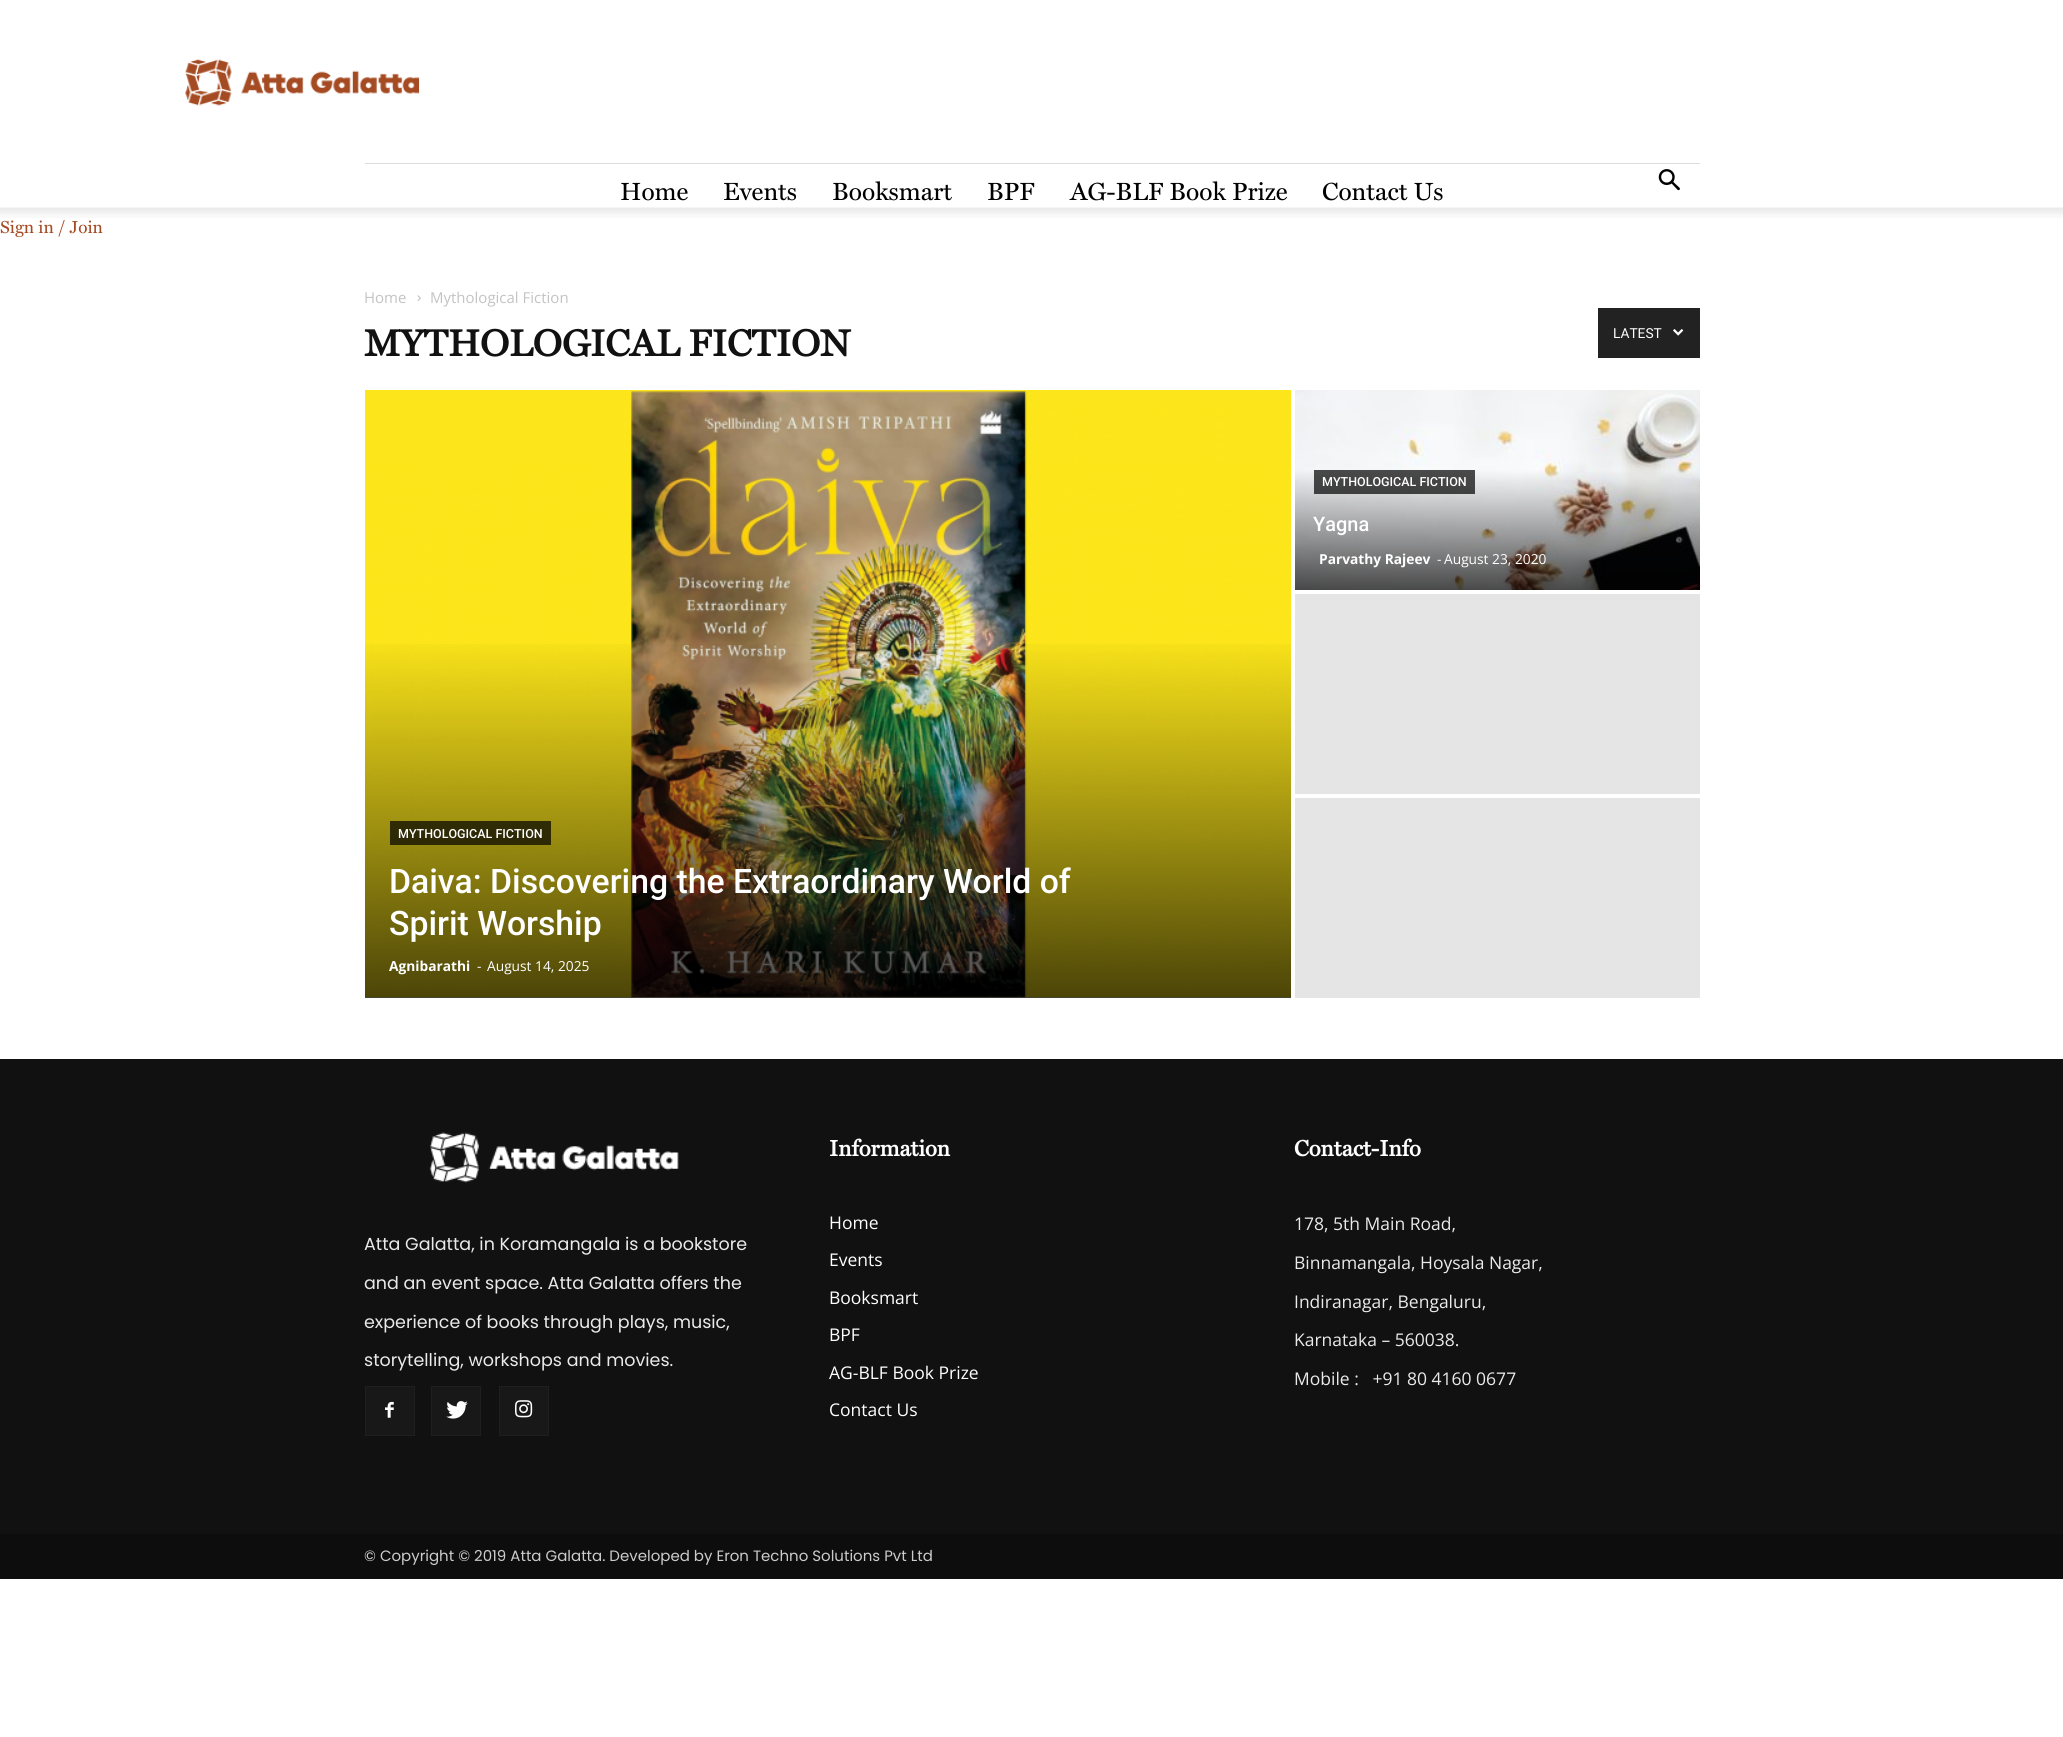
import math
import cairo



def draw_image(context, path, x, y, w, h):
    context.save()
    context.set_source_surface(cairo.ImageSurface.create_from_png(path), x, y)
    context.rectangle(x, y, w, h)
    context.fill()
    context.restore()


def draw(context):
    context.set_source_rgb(1, 1, 1)
    context.paint()
    draw_image(context, "images/1.png", 185, 59, 235, 47)
    context.set_source_rgb(221 / 255, 221 / 255, 221 / 255)
    context.rectangle(365, 163, 1335, 1)
    context.fill()
    draw_image(context, "images/2.png", 1658, 169, 22, 22)
    draw_image(context, "images/3.png", 0, 207, 2063, 11)
    draw_image(context, "images/4.png", 417, 295, 4, 6)
    context.set_source_rgb(34 / 255, 34 / 255, 34 / 255)
    context.rectangle(1598, 308, 102, 50)
    context.fill()
    draw_image(context, "images/5.png", 1673, 329, 11, 7)
    draw_image(context, "images/6.png", 1295, 390, 405, 200)
    context.set_source_rgba(0, 0, 0, 0.7)
    context.rectangle(1314, 470, 161, 24)
    context.fill()
    context.set_source_rgb(229 / 255, 229 / 255, 229 / 255)
    context.rectangle(1295, 594, 405, 200)
    context.fill()
    context.rectangle(1295, 798, 405, 200)
    context.fill()
    context.rectangle(365, 997, 926, 1)
    context.fill()
    draw_image(context, "images/7.png", 365, 390, 927, 608)
    gradient = cairo.LinearGradient(828, 390, 828, 998)
    gradient.add_color_stop_rgba(0.4, 0, 0, 0, 0)
    gradient.add_color_stop_rgba(1, 0, 0, 0, 0.7)
    context.set_source(gradient)
    context.rectangle(365, 644, 926, 354)
    context.fill()
    context.set_source_rgba(0, 0, 0, 0.7)
    context.rectangle(390, 821, 161, 24)
    context.fill()
    context.set_source_rgb(17 / 255, 17 / 255, 17 / 255)
    context.rectangle(0, 1059, 2063, 475)
    context.fill()
    draw_image(context, "images/8.png", 429, 1132, 250, 51)
    context.set_source_rgb(24 / 255, 24 / 255, 24 / 255)
    context.rectangle(366, 1387, 48, 48)
    context.fill()
    draw_image(context, "images/9.png", 385, 1401, 9, 17)
    context.rectangle(365.5, 1386.5, 49, 49)
    context.set_source_rgb(31 / 255, 31 / 255, 31 / 255)
    context.set_line_width(1)
    context.stroke()
    context.set_source_rgb(24 / 255, 24 / 255, 24 / 255)
    context.rectangle(432, 1387, 48, 48)
    context.fill()
    draw_image(context, "images/10.png", 446, 1401, 22, 18)
    context.rectangle(431.5, 1386.5, 49, 49)
    context.set_source_rgb(31 / 255, 31 / 255, 31 / 255)
    context.stroke()
    context.set_source_rgb(24 / 255, 24 / 255, 24 / 255)
    context.rectangle(500, 1387, 48, 48)
    context.fill()
    draw_image(context, "images/11.png", 515, 1400, 18, 18)
    context.rectangle(499.5, 1386.5, 49, 49)
    context.set_source_rgb(31 / 255, 31 / 255, 31 / 255)
    context.stroke()
    context.set_source_rgb(13 / 255, 13 / 255, 13 / 255)
    context.rectangle(0, 1534, 2063, 45)
    context.fill()
    context.select_font_face("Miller")
    context.set_font_size(25)
    context.set_source_rgb(0, 0, 0)
    context.move_to(620, 200)
    context.show_text("Home")
    context.move_to(723, 200)
    context.show_text("Events")
    context.move_to(832, 200)
    context.show_text("Booksmart")
    context.move_to(987, 200)
    context.show_text("BPF")
    context.move_to(1070, 200)
    context.show_text("AG-BLF Book Prize")
    context.move_to(1322, 200)
    context.show_text("Contact Us")
    context.set_font_size(17.5)
    context.set_source_rgb(165 / 255, 75 / 255, 35 / 255)
    context.move_to(0, 233)
    context.show_text("Sign in / Join")
    context.select_font_face("Open Sans")
    context.set_font_size(15)
    context.set_source_rgb(195 / 255, 195 / 255, 195 / 255)
    context.move_to(364, 303)
    context.show_text("Home")
    context.move_to(430, 303)
    context.show_text("Mythological Fiction")
    context.select_font_face("Miller", cairo.FontSlant.NORMAL, cairo.FontWeight.BOLD)
    context.set_font_size(37.5)
    context.set_source_rgb(17 / 255, 17 / 255, 17 / 255)
    context.move_to(364, 356)
    context.show_text("MYTHOLOGICAL FICTION")
    context.select_font_face("Roboto")
    context.set_font_size(13.75)
    context.set_source_rgb(1, 1, 1)
    context.move_to(1613, 338)
    context.show_text("LATEST")
    context.select_font_face("Roboto Medium")
    context.set_font_size(12.5)
    context.move_to(1322, 486)
    context.show_text("MYTHOLOGICAL FICTION")
    context.set_font_size(20)
    context.move_to(1313, 531)
    context.show_text("Yagna")
    context.select_font_face("Open Sans", cairo.FontSlant.NORMAL, cairo.FontWeight.BOLD)
    context.set_font_size(13.75)
    context.move_to(1319, 564)
    context.show_text("Parvathy Rajeev")
    context.select_font_face("Open Sans")
    context.move_to(1437, 564)
    context.show_text("-")
    context.move_to(1444, 564)
    context.show_text("August 23, 2020")
    context.select_font_face("Roboto Medium")
    context.set_font_size(12.5)
    context.move_to(398, 838)
    context.show_text("MYTHOLOGICAL FICTION")
    context.set_font_size(33.75)
    context.move_to(389, 893)
    context.show_text("Daiva: Discovering the Extraordinary World of")
    context.move_to(389, 935)
    context.show_text("Spirit Worship")
    context.select_font_face("Open Sans", cairo.FontSlant.NORMAL, cairo.FontWeight.BOLD)
    context.set_font_size(13.75)
    context.move_to(389, 971)
    context.show_text("Agnibarathi")
    context.select_font_face("Open Sans")
    context.move_to(477, 971)
    context.show_text("-")
    context.move_to(487, 971)
    context.show_text("August 14, 2025")
    context.select_font_face("Poppins")
    context.set_font_size(17.5)
    context.set_source_rgb(234 / 255, 234 / 255, 234 / 255)
    context.move_to(364, 1250)
    context.show_text("Atta Galatta, in Koramangala is a bookstore")
    context.move_to(364, 1289)
    context.show_text("and an event space. Atta Galatta offers the")
    context.move_to(364, 1328)
    context.show_text("experience of books through plays, music,")
    context.move_to(364, 1366)
    context.show_text("storytelling, workshops and movies.")
    context.select_font_face("Miller", cairo.FontSlant.NORMAL, cairo.FontWeight.BOLD)
    context.set_font_size(22.5)
    context.set_source_rgb(1, 1, 1)
    context.move_to(829, 1156)
    context.show_text("Information")
    context.select_font_face("Open Sans")
    context.set_font_size(17.5)
    context.move_to(829, 1229)
    context.show_text("Home")
    context.move_to(829, 1266)
    context.show_text("Events")
    context.move_to(829, 1304)
    context.show_text("Booksmart")
    context.move_to(829, 1341)
    context.show_text("BPF")
    context.move_to(829, 1379)
    context.show_text("AG-BLF Book Prize")
    context.move_to(829, 1416)
    context.show_text("Contact Us")
    context.select_font_face("Miller", cairo.FontSlant.NORMAL, cairo.FontWeight.BOLD)
    context.set_font_size(22.5)
    context.move_to(1294, 1156)
    context.show_text("Contact-Info")
    context.select_font_face("Open Sans")
    context.set_font_size(17.5)
    context.set_source_rgb(234 / 255, 234 / 255, 234 / 255)
    context.move_to(1294, 1230)
    context.show_text("178, 5th Main Road,")
    context.move_to(1294, 1269)
    context.show_text("Binnamangala, Hoysala Nagar,")
    context.move_to(1294, 1308)
    context.show_text("Indiranagar, Bengaluru,")
    context.move_to(1294, 1346)
    context.show_text("Karnataka – 560038.")
    context.move_to(1294, 1385)
    context.show_text("Mobile :   +91 80 4160 0677")
    context.select_font_face("Poppins")
    context.set_font_size(15)
    context.set_source_rgb(204 / 255, 204 / 255, 204 / 255)
    context.move_to(364, 1561)
    context.show_text("© Copyright © 2019 Atta Galatta. Developed by Eron Techno Solutions Pvt Ltd")


surface = cairo.ImageSurface(cairo.Format.RGB24, 2063, 1737)
context = cairo.Context(surface)
options = cairo.FontOptions()
options.set_hint_metrics(cairo.HintMetrics.OFF)
options.set_hint_style(cairo.HintStyle.NONE)
context.set_font_options(options)
context.set_miter_limit(4)
draw(context)
surface.write_to_png("out.png")
